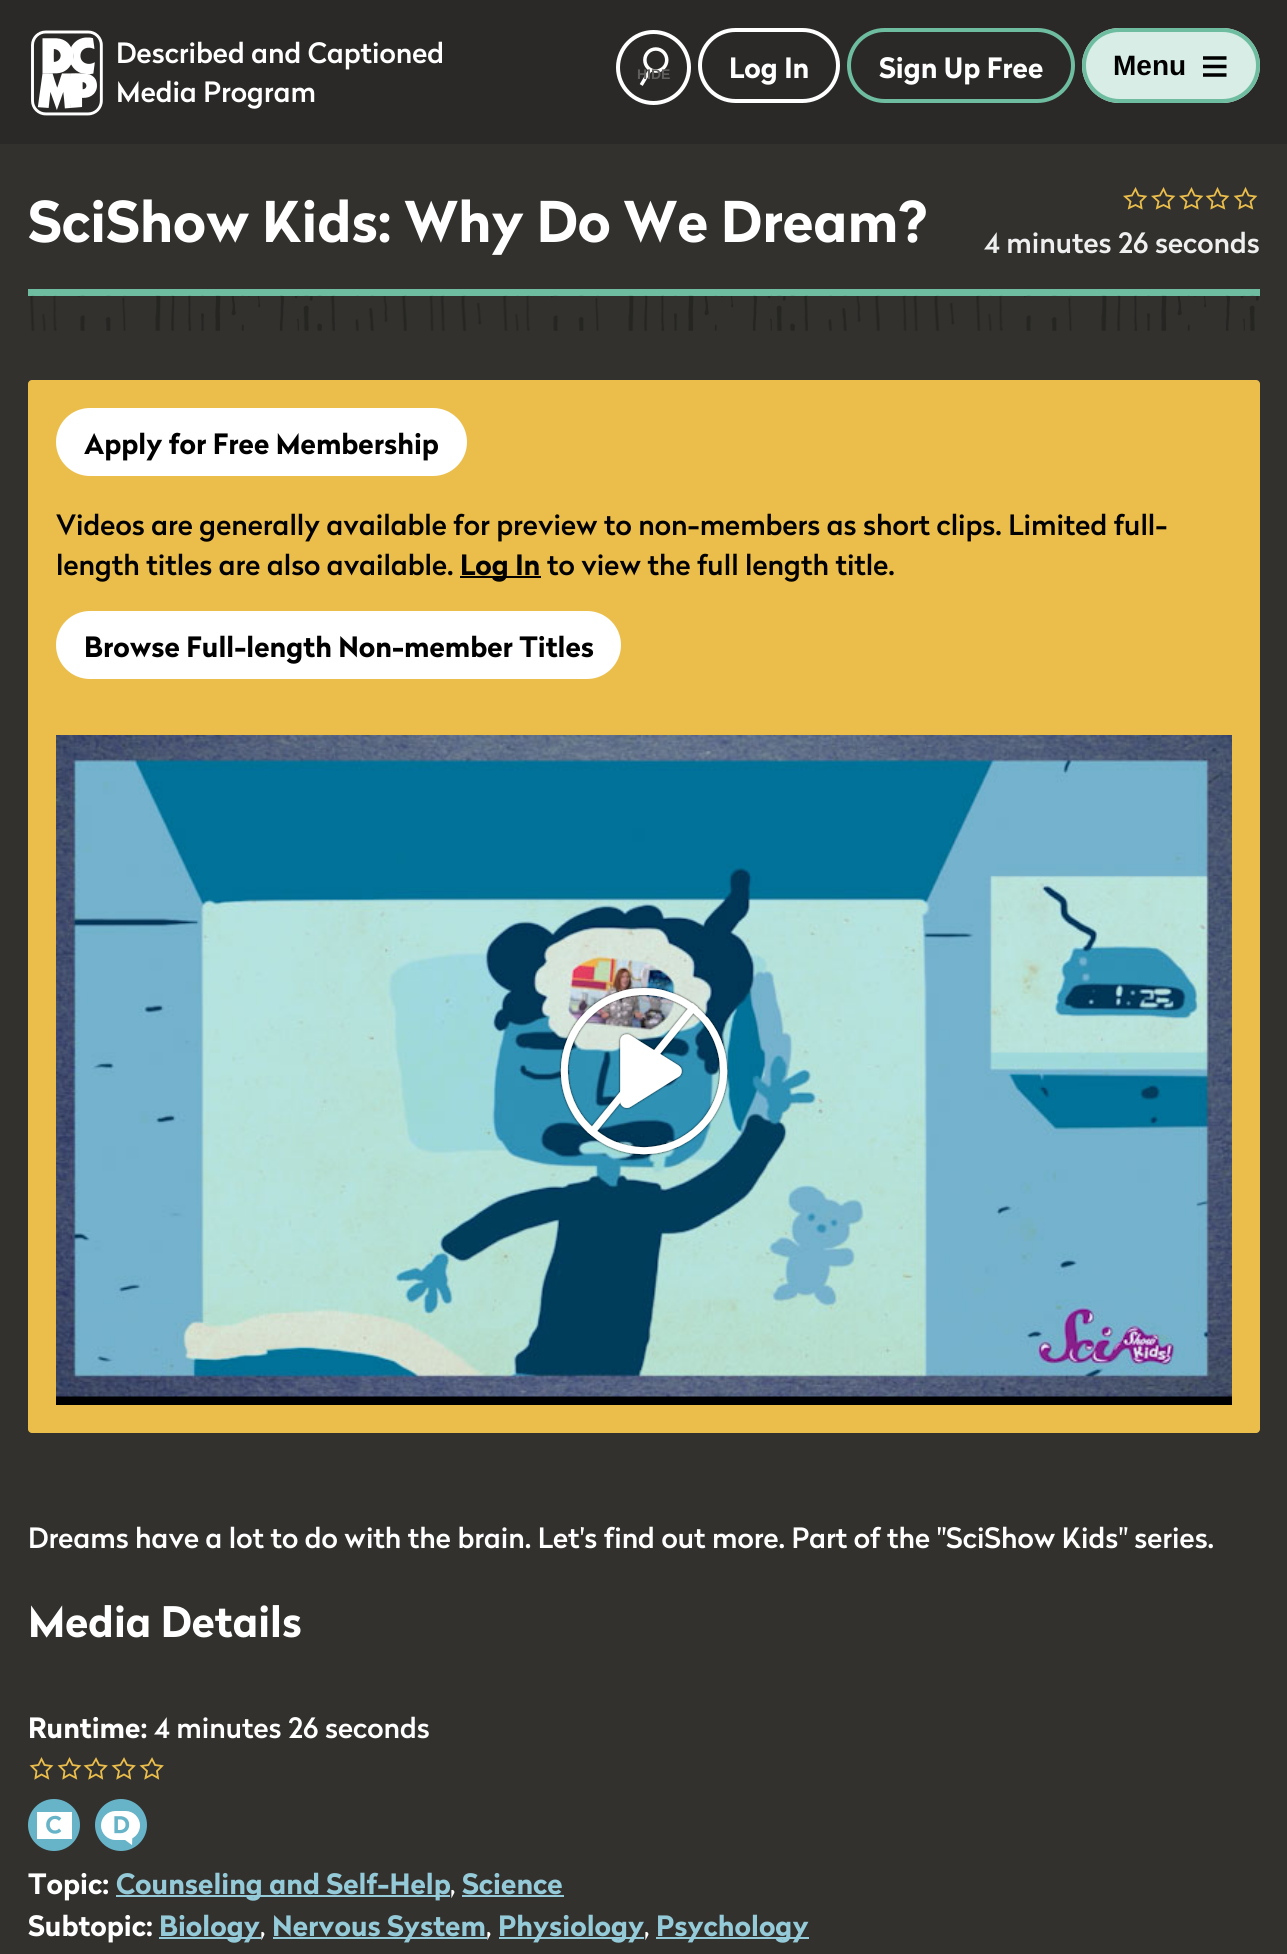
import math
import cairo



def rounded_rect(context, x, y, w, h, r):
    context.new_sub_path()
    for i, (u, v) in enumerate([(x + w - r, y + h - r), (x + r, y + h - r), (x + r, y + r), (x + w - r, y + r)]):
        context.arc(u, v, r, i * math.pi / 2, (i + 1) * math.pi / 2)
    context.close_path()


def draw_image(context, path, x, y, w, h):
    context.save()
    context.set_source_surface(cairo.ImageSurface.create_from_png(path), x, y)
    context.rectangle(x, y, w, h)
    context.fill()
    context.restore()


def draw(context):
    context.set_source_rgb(50 / 255, 49 / 255, 46 / 255)
    context.paint()
    context.set_source_rgb(43 / 255, 41 / 255, 39 / 255)
    context.rectangle(0, 0, 1287, 144)
    context.fill()
    draw_image(context, "images/1.png", 31, 30, 72, 86)
    draw_image(context, "images/2.png", 639, 47, 30, 39)
    context.arc(653.5, 67.5, 35.5, 0, 2 * math.pi)
    context.set_source_rgb(1, 1, 1)
    context.set_line_width(4)
    context.stroke()
    rounded_rect(context, 700, 30, 138, 71, 35.5)
    context.stroke()
    rounded_rect(context, 849, 30, 224, 71, 35.5)
    context.set_source_rgb(110 / 255, 189 / 255, 160 / 255)
    context.stroke()
    context.set_source_rgb(215 / 255, 237 / 255, 229 / 255)
    rounded_rect(context, 1082, 28, 178, 75, 37.5)
    context.fill()
    context.new_path()
    context.move_to(1203, 58)
    context.line_to(1226.5, 58)
    context.move_to(1203, 66.5)
    context.line_to(1226.5, 66.5)
    context.move_to(1203, 75)
    context.line_to(1226.5, 75)
    context.set_source_rgb(0, 0, 0)
    context.set_line_width(3.5)
    context.stroke()
    rounded_rect(context, 1084, 30, 174, 71, 35.5)
    context.set_source_rgb(110 / 255, 189 / 255, 160 / 255)
    context.set_line_width(4)
    context.stroke()
    context.rectangle(28, 289, 1232, 7)
    context.fill()
    context.new_path()
    context.move_to(1135.5, 205)
    context.line_to(1129, 208)
    context.line_to(1130.5, 201.5)
    context.line_to(1125, 196.5)
    context.line_to(1132, 195.5)
    context.line_to(1135.5, 189)
    context.line_to(1138.5, 195.5)
    context.line_to(1145.5, 196.5)
    context.line_to(1140.5, 201.5)
    context.line_to(1141.5, 208)
    context.close_path()
    context.move_to(1163.5, 205)
    context.line_to(1157, 208)
    context.line_to(1158.5, 201.5)
    context.line_to(1153, 196.5)
    context.line_to(1160, 195.5)
    context.line_to(1163.5, 189)
    context.line_to(1166.5, 195.5)
    context.line_to(1173.5, 196.5)
    context.line_to(1168.5, 201.5)
    context.line_to(1169.5, 208)
    context.close_path()
    context.set_source_rgb(235 / 255, 190 / 255, 75 / 255)
    context.set_line_width(1.8)
    context.stroke()
    context.new_path()
    context.move_to(1191.5, 205)
    context.line_to(1185, 208)
    context.line_to(1186.5, 201.5)
    context.line_to(1181, 196.5)
    context.line_to(1188, 195.5)
    context.line_to(1191.5, 189)
    context.line_to(1194.5, 195.5)
    context.line_to(1201.5, 196.5)
    context.line_to(1196.5, 201.5)
    context.line_to(1197.5, 208)
    context.close_path()
    context.move_to(1217.5, 205)
    context.line_to(1211.5, 208)
    context.line_to(1212.5, 201.5)
    context.line_to(1207.5, 196.5)
    context.line_to(1214.5, 195.5)
    context.line_to(1217.5, 189)
    context.line_to(1220.5, 195.5)
    context.line_to(1227.5, 196.5)
    context.line_to(1222.5, 201.5)
    context.line_to(1224, 208)
    context.close_path()
    context.stroke()
    context.new_path()
    context.move_to(1245.5, 205)
    context.line_to(1239.5, 208)
    context.line_to(1240.5, 201.5)
    context.line_to(1235.5, 196.5)
    context.line_to(1242.5, 195.5)
    context.line_to(1245.5, 189)
    context.line_to(1248.5, 195.5)
    context.line_to(1255.5, 196.5)
    context.line_to(1250.5, 201.5)
    context.line_to(1252, 208)
    context.close_path()
    context.stroke()
    draw_image(context, "images/3.png", 30, 295, 1229, 36)
    rounded_rect(context, 28, 380, 1232, 1053, 4)
    context.fill()
    context.set_source_rgb(1, 1, 1)
    rounded_rect(context, 56, 408, 411, 68, 34)
    context.fill()
    context.set_source_rgb(1 / 255, 1 / 255, 1 / 255)
    context.rectangle(460, 576, 81, 2)
    context.fill()
    context.set_source_rgb(1, 1, 1)
    rounded_rect(context, 56, 611, 565, 68, 34)
    context.fill()
    context.set_source_rgb(0, 0, 0)
    context.rectangle(56, 1396, 1176, 9)
    context.fill()
    draw_image(context, "images/4.png", 56, 735, 1176, 662)
    draw_image(context, "images/5.png", 559, 986, 170, 170)
    context.new_path()
    context.move_to(41.5, 1774.5)
    context.line_to(35.5, 1778)
    context.line_to(36.5, 1771)
    context.line_to(31.5, 1766)
    context.line_to(38.5, 1765)
    context.line_to(41.5, 1759)
    context.line_to(44.5, 1765)
    context.line_to(51.5, 1766)
    context.line_to(46.5, 1771)
    context.line_to(48, 1778)
    context.close_path()
    context.move_to(69.5, 1774.5)
    context.line_to(63.5, 1778)
    context.line_to(64.5, 1771)
    context.line_to(59.5, 1766)
    context.line_to(66.5, 1765)
    context.line_to(69.5, 1759)
    context.line_to(72.5, 1765)
    context.line_to(79.5, 1766)
    context.line_to(74.5, 1771)
    context.line_to(76, 1778)
    context.close_path()
    context.set_source_rgb(235 / 255, 190 / 255, 75 / 255)
    context.stroke()
    context.new_path()
    context.move_to(96, 1774.5)
    context.line_to(89.5, 1778)
    context.line_to(91, 1771)
    context.line_to(85.5, 1766)
    context.line_to(92.5, 1765)
    context.line_to(96, 1759)
    context.line_to(99, 1765)
    context.line_to(106, 1766)
    context.line_to(101, 1771)
    context.line_to(102, 1778)
    context.close_path()
    context.move_to(124, 1774.5)
    context.line_to(117.5, 1778)
    context.line_to(119, 1771)
    context.line_to(113.5, 1766)
    context.line_to(120.5, 1765)
    context.line_to(124, 1759)
    context.line_to(127, 1765)
    context.line_to(134, 1766)
    context.line_to(129, 1771)
    context.line_to(130, 1778)
    context.close_path()
    context.stroke()
    context.new_path()
    context.move_to(152, 1774.5)
    context.line_to(145.5, 1778)
    context.line_to(147, 1771)
    context.line_to(141.5, 1766)
    context.line_to(148.5, 1765)
    context.line_to(152, 1759)
    context.line_to(155, 1765)
    context.line_to(162, 1766)
    context.line_to(157, 1771)
    context.line_to(158, 1778)
    context.close_path()
    context.stroke()
    draw_image(context, "images/6.png", 28, 1799, 52, 52)
    draw_image(context, "images/7.png", 95, 1799, 52, 52)
    context.set_source_rgb(149 / 255, 202 / 255, 216 / 255)
    context.rectangle(116, 1895, 334, 2)
    context.fill()
    context.rectangle(462, 1895, 102, 2)
    context.fill()
    context.rectangle(159, 1937, 102, 2)
    context.fill()
    context.rectangle(273, 1937, 214, 2)
    context.fill()
    context.rectangle(499, 1937, 145, 2)
    context.fill()
    context.rectangle(656, 1937, 153, 2)
    context.fill()
    context.select_font_face("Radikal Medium")
    context.set_font_size(28)
    context.set_source_rgb(1, 1, 1)
    context.move_to(116, 63)
    context.show_text("Described and Captioned")
    context.move_to(116, 102)
    context.show_text("Media Program")
    context.select_font_face("Liberation Sans", cairo.FontSlant.NORMAL, cairo.FontWeight.BOLD)
    context.set_font_size(14)
    context.set_source_rgb(97 / 255, 95 / 255, 94 / 255)
    context.move_to(637, 79)
    context.show_text("HIDE")
    context.select_font_face("Radikal", cairo.FontSlant.NORMAL, cairo.FontWeight.BOLD)
    context.set_font_size(28)
    context.set_source_rgb(1, 1, 1)
    context.move_to(729, 78)
    context.show_text("Log In")
    context.move_to(879, 78)
    context.show_text("Sign Up Free")
    context.select_font_face("Liberation Sans", cairo.FontSlant.NORMAL, cairo.FontWeight.BOLD)
    context.set_source_rgb(1 / 255, 1 / 255, 1 / 255)
    context.move_to(1113, 75)
    context.show_text("Menu")
    context.select_font_face("Radikal", cairo.FontSlant.NORMAL, cairo.FontWeight.BOLD)
    context.set_font_size(56)
    context.set_source_rgb(1, 1, 1)
    context.move_to(28, 242)
    context.show_text("SciShow Kids: Why Do We Dream?")
    context.select_font_face("Radikal Medium")
    context.set_font_size(28)
    context.set_source_rgb(239 / 255, 239 / 255, 239 / 255)
    context.move_to(984, 253)
    context.show_text("4 minutes 26 seconds")
    context.select_font_face("Radikal", cairo.FontSlant.NORMAL, cairo.FontWeight.BOLD)
    context.set_source_rgb(1 / 255, 1 / 255, 1 / 255)
    context.move_to(84, 454)
    context.show_text("Apply for Free Membership")
    context.select_font_face("Radikal Medium")
    context.move_to(56, 535)
    context.show_text("Videos are generally available for preview to non-members as short clips. Limited full-")
    context.move_to(56, 575)
    context.show_text("length titles are also available.")
    context.select_font_face("Radikal", cairo.FontSlant.NORMAL, cairo.FontWeight.BOLD)
    context.move_to(460, 575)
    context.show_text("Log In")
    context.select_font_face("Radikal Medium")
    context.move_to(547, 575)
    context.show_text("to view the full length title.")
    context.select_font_face("Radikal", cairo.FontSlant.NORMAL, cairo.FontWeight.BOLD)
    context.move_to(84, 657)
    context.show_text("Browse Full-length Non-member Titles")
    context.select_font_face("Radikal Medium")
    context.set_source_rgb(1, 1, 1)
    context.move_to(28, 1548)
    context.show_text("Dreams have a lot to do with the brain. Let's find out more. Part of the \"SciShow Kids\" series.")
    context.select_font_face("Radikal", cairo.FontSlant.NORMAL, cairo.FontWeight.BOLD)
    context.set_font_size(42)
    context.move_to(28, 1637)
    context.show_text("Media Details")
    context.set_font_size(28)
    context.move_to(28, 1738)
    context.show_text("Runtime:")
    context.select_font_face("Radikal Medium")
    context.move_to(154, 1738)
    context.show_text("4 minutes 26 seconds")
    context.select_font_face("Radikal", cairo.FontSlant.NORMAL, cairo.FontWeight.BOLD)
    context.move_to(28, 1894)
    context.show_text("Topic:")
    context.set_source_rgb(149 / 255, 202 / 255, 216 / 255)
    context.move_to(116, 1894)
    context.show_text("Counseling and Self-Help")
    context.select_font_face("Radikal Medium")
    context.set_source_rgb(1, 1, 1)
    context.move_to(450, 1894)
    context.show_text(",")
    context.select_font_face("Radikal", cairo.FontSlant.NORMAL, cairo.FontWeight.BOLD)
    context.set_source_rgb(149 / 255, 202 / 255, 216 / 255)
    context.move_to(462, 1894)
    context.show_text("Science")
    context.set_source_rgb(1, 1, 1)
    context.move_to(28, 1936)
    context.show_text("Subtopic:")
    context.set_source_rgb(149 / 255, 202 / 255, 216 / 255)
    context.move_to(159, 1936)
    context.show_text("Biology")
    context.select_font_face("Radikal Medium")
    context.set_source_rgb(1, 1, 1)
    context.move_to(260, 1936)
    context.show_text(",")
    context.select_font_face("Radikal", cairo.FontSlant.NORMAL, cairo.FontWeight.BOLD)
    context.set_source_rgb(149 / 255, 202 / 255, 216 / 255)
    context.move_to(272, 1936)
    context.show_text("Nervous System")
    context.select_font_face("Radikal Medium")
    context.set_source_rgb(1, 1, 1)
    context.move_to(486, 1936)
    context.show_text(",")
    context.select_font_face("Radikal", cairo.FontSlant.NORMAL, cairo.FontWeight.BOLD)
    context.set_source_rgb(149 / 255, 202 / 255, 216 / 255)
    context.move_to(498, 1936)
    context.show_text("Physiology")
    context.select_font_face("Radikal Medium")
    context.set_source_rgb(1, 1, 1)
    context.move_to(644, 1936)
    context.show_text(",")
    context.select_font_face("Radikal", cairo.FontSlant.NORMAL, cairo.FontWeight.BOLD)
    context.set_source_rgb(149 / 255, 202 / 255, 216 / 255)
    context.move_to(656, 1936)
    context.show_text("Psychology")


surface = cairo.ImageSurface(cairo.Format.RGB24, 1287, 1954)
context = cairo.Context(surface)
options = cairo.FontOptions()
options.set_hint_metrics(cairo.HintMetrics.OFF)
options.set_hint_style(cairo.HintStyle.NONE)
context.set_font_options(options)
context.set_miter_limit(4)
draw(context)
surface.write_to_png("out.png")
